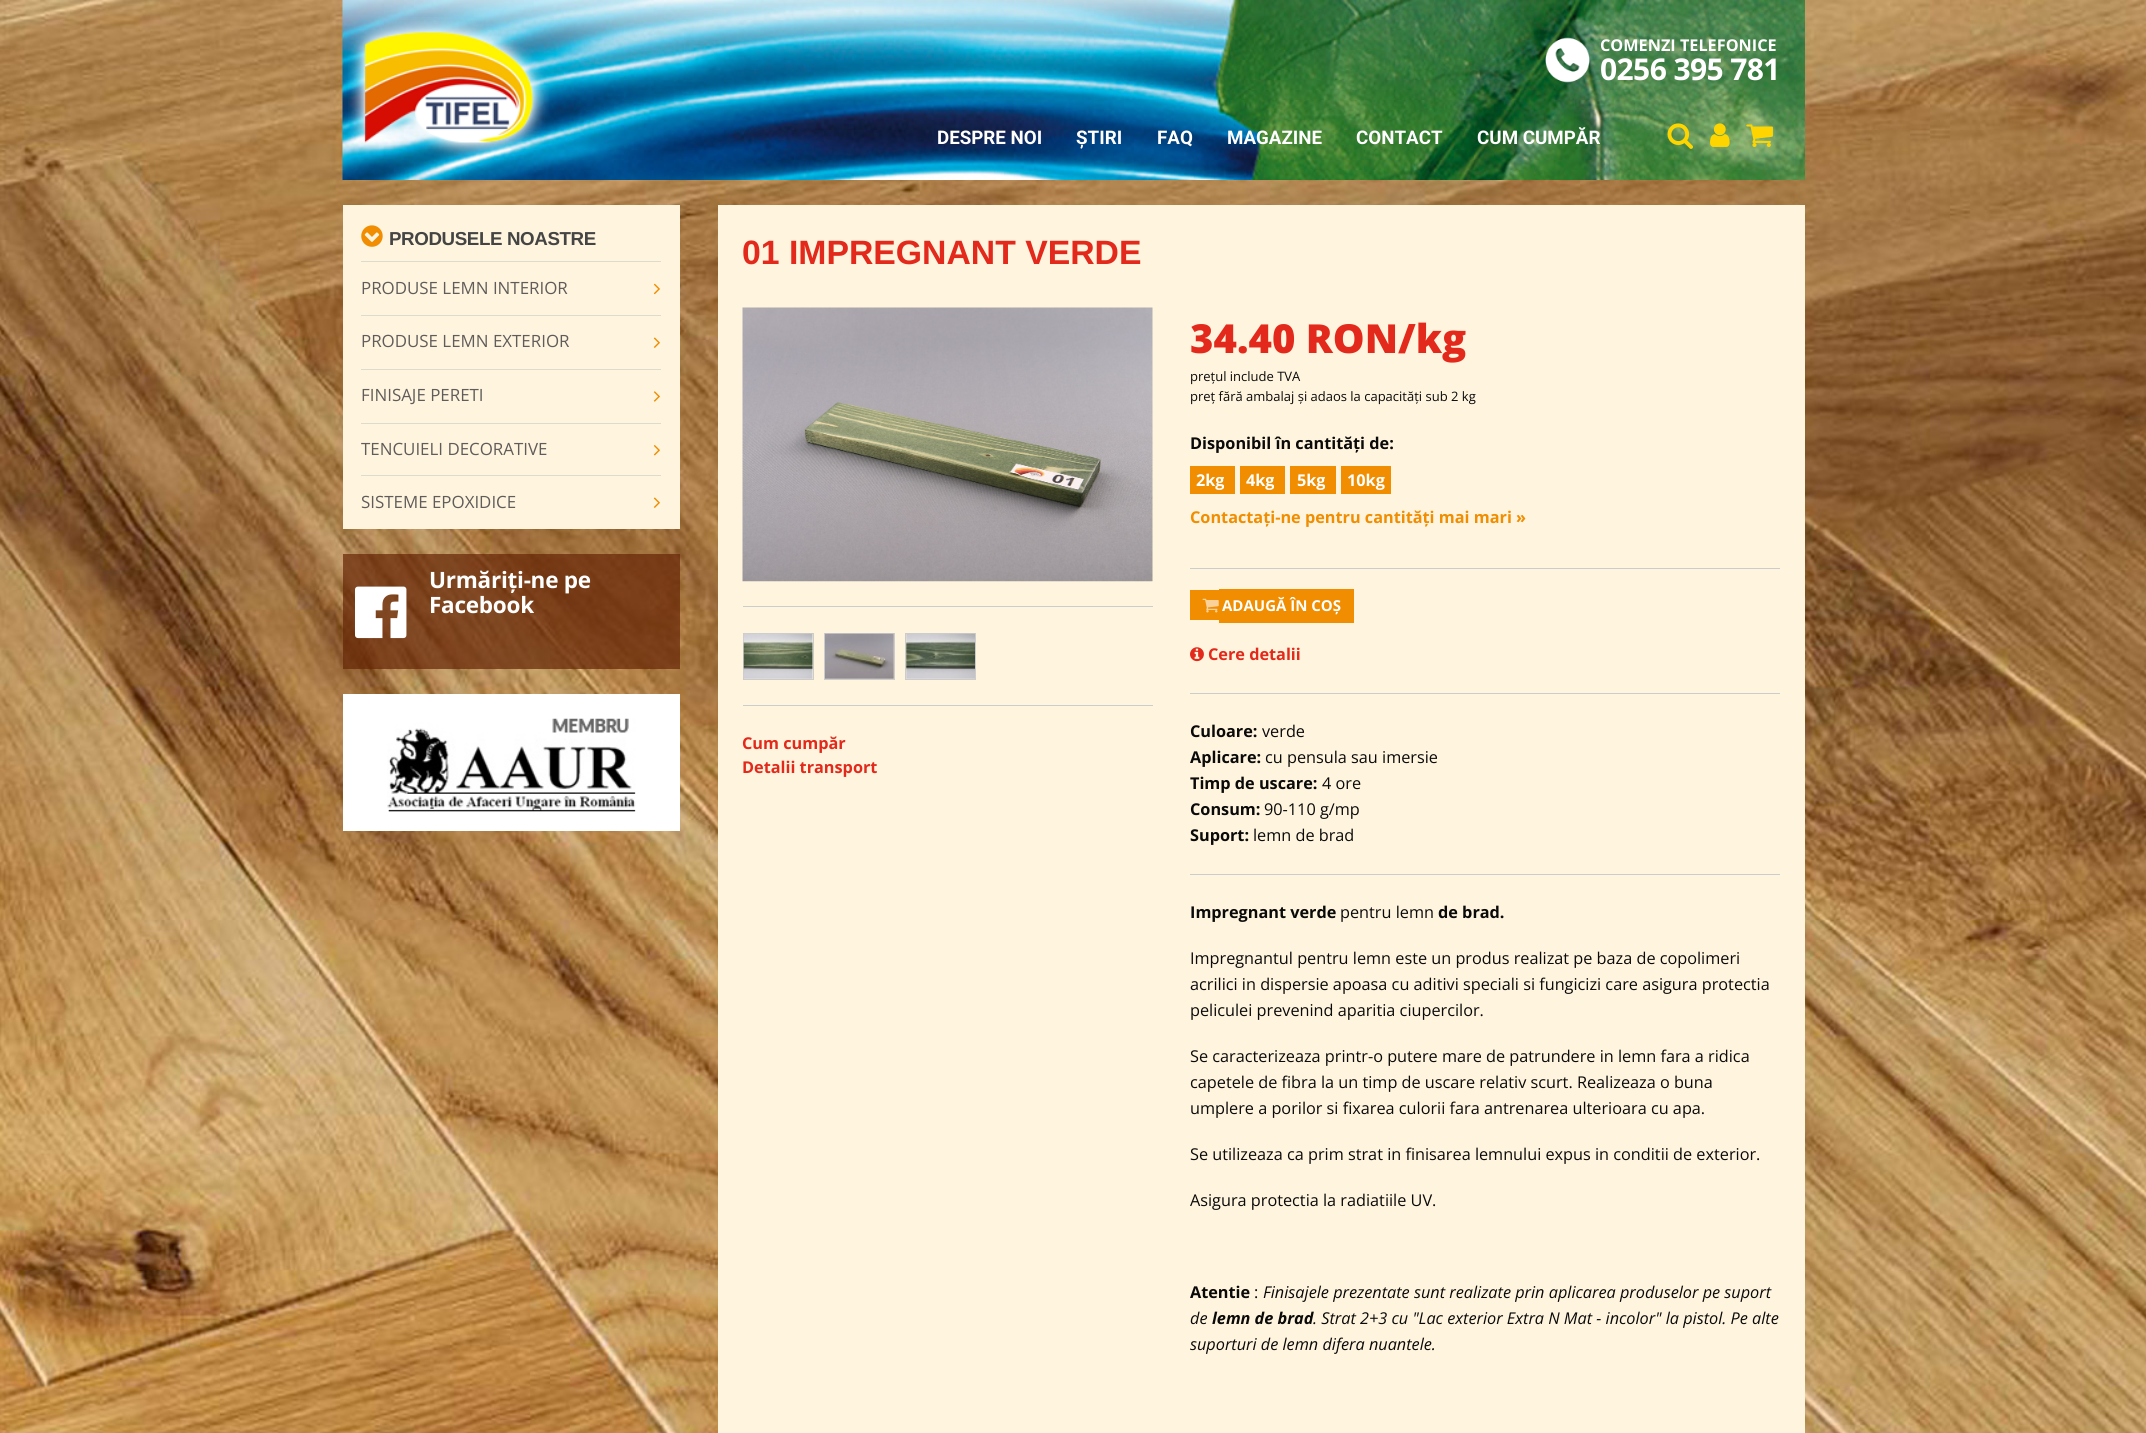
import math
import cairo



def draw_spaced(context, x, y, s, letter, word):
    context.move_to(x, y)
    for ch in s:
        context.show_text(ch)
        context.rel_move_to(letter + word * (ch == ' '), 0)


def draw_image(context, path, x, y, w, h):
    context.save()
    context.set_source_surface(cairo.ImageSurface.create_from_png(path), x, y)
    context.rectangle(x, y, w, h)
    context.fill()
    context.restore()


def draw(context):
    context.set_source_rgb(1, 1, 1)
    context.paint()
    draw_image(context, "images/1.png", 0, 0, 2146, 1433)
    draw_image(context, "images/2.png", 342, 0, 1463, 180)
    draw_image(context, "images/3.png", 348, 17, 201, 142)
    draw_image(context, "images/4.png", 1545, 37, 45, 46)
    draw_image(context, "images/5.png", 1667, 123, 26, 26)
    draw_image(context, "images/6.png", 1710, 123, 20, 24)
    draw_image(context, "images/7.png", 1746, 124, 27, 23)
    context.set_source_rgb(1, 244 / 255, 222 / 255)
    context.rectangle(343, 205, 337, 324)
    context.fill()
    draw_image(context, "images/8.png", 361, 225, 22, 22)
    context.set_source_rgb(222 / 255, 218 / 255, 204 / 255)
    context.rectangle(361, 261, 300, 1)
    context.fill()
    draw_image(context, "images/9.png", 653, 283, 7, 12)
    context.rectangle(361, 315, 300, 1)
    context.fill()
    draw_image(context, "images/10.png", 653, 337, 7, 11)
    context.rectangle(361, 369, 300, 1)
    context.fill()
    draw_image(context, "images/11.png", 653, 391, 7, 11)
    context.rectangle(361, 423, 300, 1)
    context.fill()
    draw_image(context, "images/12.png", 653, 445, 7, 11)
    context.rectangle(361, 475, 300, 1)
    context.fill()
    draw_image(context, "images/10.png", 653, 497, 7, 11)
    context.set_source_rgba(102 / 255, 38 / 255, 6 / 255, 0.7)
    context.rectangle(343, 554, 337, 115)
    context.fill()
    draw_image(context, "images/13.png", 355, 586, 52, 53)
    context.set_source_rgb(1, 1, 1)
    context.rectangle(343, 694, 337, 137)
    context.fill()
    draw_image(context, "images/14.png", 387, 718, 249, 94)
    context.set_source_rgb(1, 244 / 255, 222 / 255)
    context.rectangle(718, 205, 1087, 1228)
    context.fill()
    context.set_source_rgb(204 / 255, 204 / 255, 204 / 255)
    context.rectangle(743, 606, 410, 1)
    context.fill()
    draw_image(context, "images/15.png", 742, 307, 411, 275)
    context.rectangle(743, 705, 410, 1)
    context.fill()
    context.rectangle(743.5, 633.5, 70, 46)
    context.set_line_width(1)
    context.stroke()
    draw_image(context, "images/16.png", 743, 633, 70, 46)
    context.rectangle(824.5, 633.5, 70, 46)
    context.stroke()
    draw_image(context, "images/17.png", 825, 633, 69, 46)
    context.rectangle(905.5, 633.5, 70, 46)
    context.stroke()
    draw_image(context, "images/18.png", 906, 633, 69, 46)
    context.rectangle(1190, 568, 590, 1)
    context.fill()
    context.set_source_rgb(240 / 255, 141 / 255, 0)
    context.rectangle(1190, 466, 45, 28)
    context.fill()
    context.rectangle(1240, 466, 45, 28)
    context.fill()
    context.rectangle(1290, 466, 46, 28)
    context.fill()
    context.rectangle(1341, 466, 50, 28)
    context.fill()
    context.rectangle(1190, 590, 29, 30)
    context.fill()
    context.rectangle(1219, 589, 135, 34)
    context.fill()
    draw_image(context, "images/19.png", 1202, 598, 17, 15)
    context.set_source_rgb(204 / 255, 204 / 255, 204 / 255)
    context.rectangle(1190, 693, 590, 1)
    context.fill()
    draw_image(context, "images/20.png", 1190, 647, 14, 15)
    context.rectangle(1190, 874, 590, 1)
    context.fill()
    context.select_font_face("Open Sans", cairo.FontSlant.NORMAL, cairo.FontWeight.BOLD)
    context.set_font_size(16.25)
    context.set_source_rgb(1, 1, 1)
    context.move_to(1600, 51)
    context.show_text("COMENZI TELEFONICE")
    context.set_font_size(30)
    draw_spaced(context, 1600, 80, "0256 395 781", -0.6, 0)
    context.select_font_face("Roboto", cairo.FontSlant.NORMAL, cairo.FontWeight.BOLD)
    context.set_font_size(18.75)
    context.move_to(937, 144)
    context.show_text("DESPRE NOI")
    context.move_to(1076, 144)
    context.show_text("ȘTIRI")
    context.move_to(1157, 144)
    context.show_text("FAQ")
    context.move_to(1227, 144)
    context.show_text("MAGAZINE")
    context.move_to(1356, 144)
    context.show_text("CONTACT")
    context.move_to(1477, 144)
    context.show_text("CUM CUMPĂR")
    context.select_font_face("Liberation Sans", cairo.FontSlant.NORMAL, cairo.FontWeight.BOLD)
    context.set_source_rgb(68 / 255, 68 / 255, 68 / 255)
    draw_spaced(context, 389, 245, "PRODUSELE NOASTRE", -0.4, 0)
    context.select_font_face("Open Sans")
    context.set_font_size(16.9)
    context.set_source_rgb(95 / 255, 92 / 255, 90 / 255)
    context.move_to(361, 294)
    context.show_text("PRODUSE LEMN INTERIOR")
    context.move_to(361, 347)
    context.show_text("PRODUSE LEMN EXTERIOR")
    context.move_to(361, 401)
    context.show_text("FINISAJE PERETI")
    context.move_to(361, 455)
    context.show_text("TENCUIELI DECORATIVE")
    context.move_to(361, 508)
    context.show_text("SISTEME EPOXIDICE")
    context.select_font_face("Open Sans", cairo.FontSlant.NORMAL, cairo.FontWeight.BOLD)
    context.set_font_size(22.5)
    context.set_source_rgb(1, 1, 1)
    draw_spaced(context, 429, 588, "Urmăriți-ne pe", -0.25, 0)
    draw_spaced(context, 429, 613, "Facebook", -0.25, 0)
    context.select_font_face("Liberation Sans", cairo.FontSlant.NORMAL, cairo.FontWeight.BOLD)
    context.set_font_size(33.75)
    context.set_source_rgb(226 / 255, 41 / 255, 27 / 255)
    context.move_to(742, 264)
    context.show_text("01 IMPREGNANT VERDE")
    context.select_font_face("Open Sans", cairo.FontSlant.NORMAL, cairo.FontWeight.BOLD)
    context.set_font_size(16.25)
    context.move_to(742, 749)
    context.show_text("Cum cumpăr")
    context.move_to(742, 773)
    context.show_text("Detalii transport")
    context.select_font_face("Open Sans ExtraBold")
    context.set_font_size(40)
    context.move_to(1190, 353)
    context.show_text("34.40 RON/kg")
    context.select_font_face("Open Sans")
    context.set_font_size(13)
    context.set_source_rgb(10 / 255, 10 / 255, 10 / 255)
    context.move_to(1190, 381)
    context.show_text("prețul include TVA")
    context.move_to(1190, 401)
    context.show_text("preț fără ambalaj și adaos la capacități sub 2 kg")
    context.select_font_face("Open Sans", cairo.FontSlant.NORMAL, cairo.FontWeight.BOLD)
    context.set_font_size(16.25)
    context.move_to(1190, 449)
    context.show_text("Disponibil în cantități de:")
    context.set_source_rgb(1, 1, 1)
    context.move_to(1196, 486)
    context.show_text("2kg")
    context.move_to(1246, 486)
    context.show_text("4kg")
    context.move_to(1297, 486)
    context.show_text("5kg")
    context.move_to(1347, 486)
    context.show_text("10kg")
    context.set_source_rgb(240 / 255, 141 / 255, 0)
    context.move_to(1190, 523)
    context.show_text("Contactați-ne pentru cantități mai mari »")
    context.set_font_size(15)
    context.set_source_rgb(1, 1, 1)
    context.move_to(1222, 611)
    context.show_text("ADAUGĂ ÎN COȘ")
    context.set_font_size(16.25)
    context.set_source_rgb(226 / 255, 41 / 255, 27 / 255)
    context.move_to(1208, 660)
    context.show_text("Cere detalii")
    context.set_source_rgb(10 / 255, 10 / 255, 10 / 255)
    context.move_to(1190, 737)
    context.show_text("Culoare:")
    context.select_font_face("Open Sans")
    context.move_to(1262, 737)
    context.show_text("verde")
    context.select_font_face("Open Sans", cairo.FontSlant.NORMAL, cairo.FontWeight.BOLD)
    context.move_to(1190, 763)
    context.show_text("Aplicare:")
    context.select_font_face("Open Sans")
    context.move_to(1265, 763)
    context.show_text("cu pensula sau imersie")
    context.select_font_face("Open Sans", cairo.FontSlant.NORMAL, cairo.FontWeight.BOLD)
    context.move_to(1190, 789)
    context.show_text("Timp de uscare:")
    context.select_font_face("Open Sans")
    context.move_to(1322, 789)
    context.show_text("4 ore")
    context.select_font_face("Open Sans", cairo.FontSlant.NORMAL, cairo.FontWeight.BOLD)
    context.move_to(1190, 815)
    context.show_text("Consum:")
    context.select_font_face("Open Sans")
    context.move_to(1264, 815)
    context.show_text("90-110 g/mp")
    context.select_font_face("Open Sans", cairo.FontSlant.NORMAL, cairo.FontWeight.BOLD)
    context.move_to(1190, 841)
    context.show_text("Suport:")
    context.select_font_face("Open Sans")
    context.move_to(1253, 841)
    context.show_text("lemn de brad")
    context.select_font_face("Open Sans", cairo.FontSlant.NORMAL, cairo.FontWeight.BOLD)
    context.move_to(1190, 918)
    context.show_text("Impregnant verde")
    context.select_font_face("Open Sans")
    context.move_to(1340, 918)
    context.show_text("pentru lemn")
    context.select_font_face("Open Sans", cairo.FontSlant.NORMAL, cairo.FontWeight.BOLD)
    context.move_to(1438, 918)
    context.show_text("de brad.")
    context.select_font_face("Open Sans")
    context.move_to(1190, 964)
    context.show_text("Impregnantul pentru lemn este un produs realizat pe baza de copolimeri")
    context.move_to(1190, 990)
    context.show_text("acrilici in dispersie apoasa cu aditivi speciali si fungicizi care asigura protectia")
    context.move_to(1190, 1016)
    context.show_text("peliculei prevenind aparitia ciupercilor.")
    context.move_to(1190, 1062)
    context.show_text("Se caracterizeaza printr-o putere mare de patrundere in lemn fara a ridica")
    context.move_to(1190, 1088)
    context.show_text("capetele de fibra la un timp de uscare relativ scurt. Realizeaza o buna")
    context.move_to(1190, 1114)
    context.show_text("umplere a porilor si fixarea culorii fara antrenarea ulterioara cu apa.")
    context.move_to(1190, 1160)
    context.show_text("Se utilizeaza ca prim strat in finisarea lemnului expus in conditii de exterior.")
    context.move_to(1190, 1206)
    context.show_text("Asigura protectia la radiatiile UV.")
    context.select_font_face("Open Sans", cairo.FontSlant.NORMAL, cairo.FontWeight.BOLD)
    context.move_to(1190, 1298)
    context.show_text("Atentie")
    context.select_font_face("Open Sans")
    context.move_to(1254, 1298)
    context.show_text(":")
    context.select_font_face("Open Sans", cairo.FontSlant.ITALIC)
    context.move_to(1263, 1298)
    context.show_text("Finisajele prezentate sunt realizate prin aplicarea produselor pe suport")
    context.move_to(1190, 1324)
    context.show_text("de")
    context.select_font_face("Open Sans", cairo.FontSlant.ITALIC, cairo.FontWeight.BOLD)
    context.move_to(1212, 1324)
    context.show_text("lemn de brad")
    context.select_font_face("Open Sans", cairo.FontSlant.ITALIC)
    context.move_to(1313, 1324)
    context.show_text(". Strat 2+3 cu \"Lac exterior Extra N Mat - incolor\" la pistol. Pe alte")
    context.move_to(1190, 1350)
    context.show_text("suporturi de lemn difera nuantele.")


surface = cairo.ImageSurface(cairo.Format.RGB24, 2146, 1433)
context = cairo.Context(surface)
options = cairo.FontOptions()
options.set_hint_metrics(cairo.HintMetrics.OFF)
options.set_hint_style(cairo.HintStyle.NONE)
context.set_font_options(options)
context.set_miter_limit(4)
draw(context)
surface.write_to_png("out.png")
